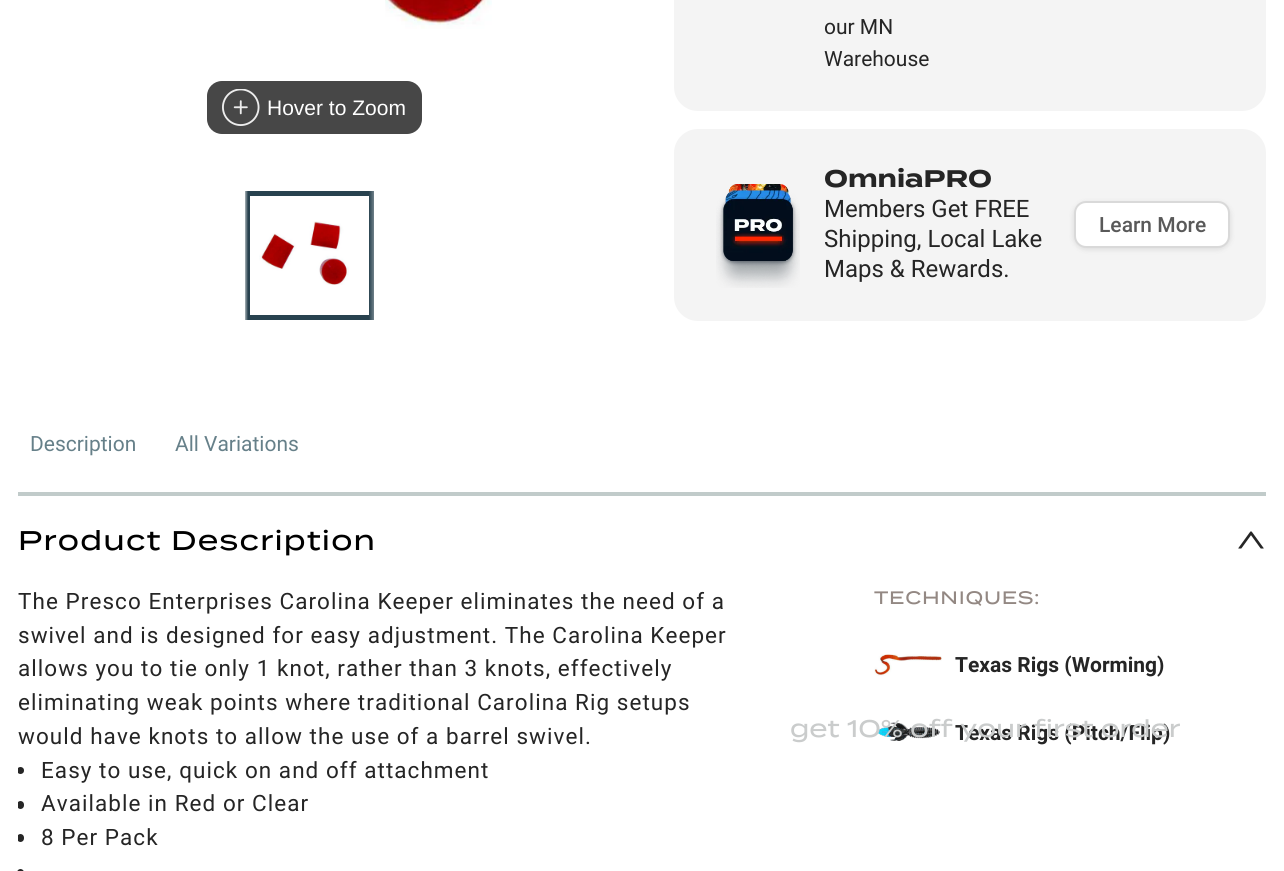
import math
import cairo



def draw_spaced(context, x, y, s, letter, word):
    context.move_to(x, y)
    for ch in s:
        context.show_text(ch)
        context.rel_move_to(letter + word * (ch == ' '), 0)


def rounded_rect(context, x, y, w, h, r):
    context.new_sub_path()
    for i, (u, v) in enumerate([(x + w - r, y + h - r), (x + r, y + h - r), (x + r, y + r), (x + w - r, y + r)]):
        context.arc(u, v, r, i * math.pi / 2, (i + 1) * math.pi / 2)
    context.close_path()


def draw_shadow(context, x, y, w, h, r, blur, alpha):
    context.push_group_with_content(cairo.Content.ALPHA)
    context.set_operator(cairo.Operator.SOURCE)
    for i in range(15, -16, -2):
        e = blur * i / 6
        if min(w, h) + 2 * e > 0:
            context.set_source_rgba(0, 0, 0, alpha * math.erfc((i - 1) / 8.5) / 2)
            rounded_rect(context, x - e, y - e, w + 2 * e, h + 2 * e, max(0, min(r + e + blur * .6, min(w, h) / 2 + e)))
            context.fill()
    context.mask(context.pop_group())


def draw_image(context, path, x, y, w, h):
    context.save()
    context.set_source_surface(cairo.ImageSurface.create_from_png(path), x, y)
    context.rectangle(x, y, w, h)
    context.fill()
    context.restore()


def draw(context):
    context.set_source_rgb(1, 1, 1)
    context.paint()
    draw_image(context, "images/1.png", 385, 0, 107, 29)
    context.set_source_rgb(71 / 255, 71 / 255, 71 / 255)
    rounded_rect(context, 207, 81, 215, 53, 15)
    context.fill()
    draw_image(context, "images/2.png", 222, 89, 38, 37)
    draw_image(context, "images/3.png", 259, 221, 90, 64)
    context.rectangle(247.5, 193.5, 124, 124)
    context.set_source_rgb(40 / 255, 66 / 255, 79 / 255)
    context.set_line_width(5)
    context.stroke()
    gradient = cairo.LinearGradient(243, 255, 248, 255)
    gradient.add_color_stop_rgba(0, 1, 1, 1, 1)
    gradient.add_color_stop_rgba(1, 1, 1, 1, 0)
    context.set_source(gradient)
    context.rectangle(245, 189, 3, 132)
    context.fill()
    gradient = cairo.LinearGradient(384, 255, 369, 255)
    gradient.add_color_stop_rgba(0, 1, 1, 1, 1)
    gradient.add_color_stop_rgba(1, 1, 1, 1, 0)
    context.set_source(gradient)
    context.rectangle(369, 191, 5, 129)
    context.fill()
    context.set_source_rgb(244 / 255, 244 / 255, 244 / 255)
    rounded_rect(context, 674, -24, 592, 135, 24)
    context.fill()
    rounded_rect(context, 674, 129, 592, 192, 24)
    context.fill()
    draw_image(context, "images/4.png", 716, 184, 84, 104)
    context.set_source_rgb(0, 0, 0)
    draw_shadow(context, 1074, 203, 156, 46, 12, 3, 0.12)
    context.set_source_rgb(1, 1, 1)
    rounded_rect(context, 1075, 202, 154, 45, 11)
    context.fill_preserve()
    context.set_source_rgb(217 / 255, 217 / 255, 217 / 255)
    context.set_line_width(2)
    context.stroke()
    context.set_source_rgb(193 / 255, 203 / 255, 202 / 255)
    context.rectangle(18, 492, 1248, 4)
    context.fill()
    draw_image(context, "images/5.png", 1238, 531, 26, 18)
    context.save()
    context.rectangle(18, 585, 1248, 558)
    context.clip()
    context.set_source_rgb(38 / 255, 38 / 255, 38 / 255)
    context.arc(20.5, 770.5, 3.5, 0, 2 * math.pi)
    context.fill()
    rounded_rect(context, 17, 801, 7, 8, 3.5)
    context.fill()
    rounded_rect(context, 17, 834, 7, 8, 3.5)
    context.fill()
    context.restore()
    context.set_source_rgb(38 / 255, 38 / 255, 38 / 255)
    rounded_rect(context, 17, 869, 7, 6, 3.5)
    context.fill()
    draw_image(context, "images/6.png", 874, 654, 68, 22)
    draw_image(context, "images/7.png", 876, 722, 64, 19)
    context.select_font_face("Liberation Sans")
    context.set_font_size(21)
    context.set_source_rgb(1, 1, 1)
    context.move_to(267, 115)
    context.show_text("Hover to Zoom")
    context.select_font_face("Roboto")
    context.set_source_rgb(37 / 255, 37 / 255, 37 / 255)
    context.move_to(824, 34)
    context.show_text("our MN")
    context.move_to(824, 66)
    context.show_text("Warehouse")
    context.select_font_face("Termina", cairo.FontSlant.NORMAL, cairo.FontWeight.BOLD)
    context.set_font_size(24)
    context.move_to(824, 187)
    context.show_text("OmniaPRO")
    context.select_font_face("Roboto")
    context.move_to(824, 217)
    context.show_text("Members Get FREE")
    context.move_to(824, 247)
    context.show_text("Shipping, Local Lake")
    context.move_to(824, 277)
    context.show_text("Maps & Rewards.")
    context.select_font_face("Roboto Medium")
    context.set_font_size(21)
    context.set_source_rgb(89 / 255, 89 / 255, 89 / 255)
    context.move_to(1099, 232)
    context.show_text("Learn More")
    context.select_font_face("Roboto")
    context.set_source_rgb(102 / 255, 128 / 255, 137 / 255)
    context.move_to(30, 451)
    context.show_text("Description")
    context.move_to(175, 451)
    context.show_text("All Variations")
    context.select_font_face("Termina Medium")
    context.set_font_size(27)
    context.set_source_rgb(0, 0, 0)
    draw_spaced(context, 18, 550, "Product Description", 1.25, 0)
    context.select_font_face("Roboto")
    context.set_font_size(22.5)
    context.set_source_rgb(37 / 255, 37 / 255, 37 / 255)
    draw_spaced(context, 18, 609, "The Presco Enterprises Carolina Keeper eliminates the need of a", 1.05, 0)
    draw_spaced(context, 18, 643, "swivel and is designed for easy adjustment. The Carolina Keeper", 1.05, 0)
    draw_spaced(context, 18, 676, "allows you to tie only 1 knot, rather than 3 knots, effectively", 1.05, 0)
    draw_spaced(context, 18, 710, "eliminating weak points where traditional Carolina Rig setups", 1.05, 0)
    draw_spaced(context, 18, 744, "would have knots to allow the use of a barrel swivel.", 1.05, 0)
    draw_spaced(context, 41, 778, "Easy to use, quick on and off attachment", 1.05, 0)
    draw_spaced(context, 41, 811, "Available in Red or Clear", 1.05, 0)
    draw_spaced(context, 41, 845, "8 Per Pack", 1.05, 0)
    context.select_font_face("Termina Medium")
    context.set_font_size(18)
    context.set_source_rgb(147 / 255, 136 / 255, 131 / 255)
    draw_spaced(context, 874, 604, "TECHNIQUES:", 0.75, 0)
    context.select_font_face("Roboto", cairo.FontSlant.NORMAL, cairo.FontWeight.BOLD)
    context.set_font_size(21)
    context.set_source_rgb(37 / 255, 37 / 255, 37 / 255)
    context.move_to(955, 672)
    context.show_text("Texas Rigs (Worming)")
    context.move_to(955, 740)
    context.show_text("Texas Rigs (Pitch/Flip)")
    context.select_font_face("Termina Medium")
    context.set_font_size(24)
    context.set_source_rgb(202 / 255, 204 / 255, 204 / 255)
    context.move_to(790, 737)
    context.show_text("get 10% off your first order")


surface = cairo.ImageSurface(cairo.Format.RGB24, 1284, 871)
context = cairo.Context(surface)
options = cairo.FontOptions()
options.set_hint_metrics(cairo.HintMetrics.OFF)
options.set_hint_style(cairo.HintStyle.NONE)
context.set_font_options(options)
context.set_miter_limit(4)
draw(context)
surface.write_to_png("out.png")
